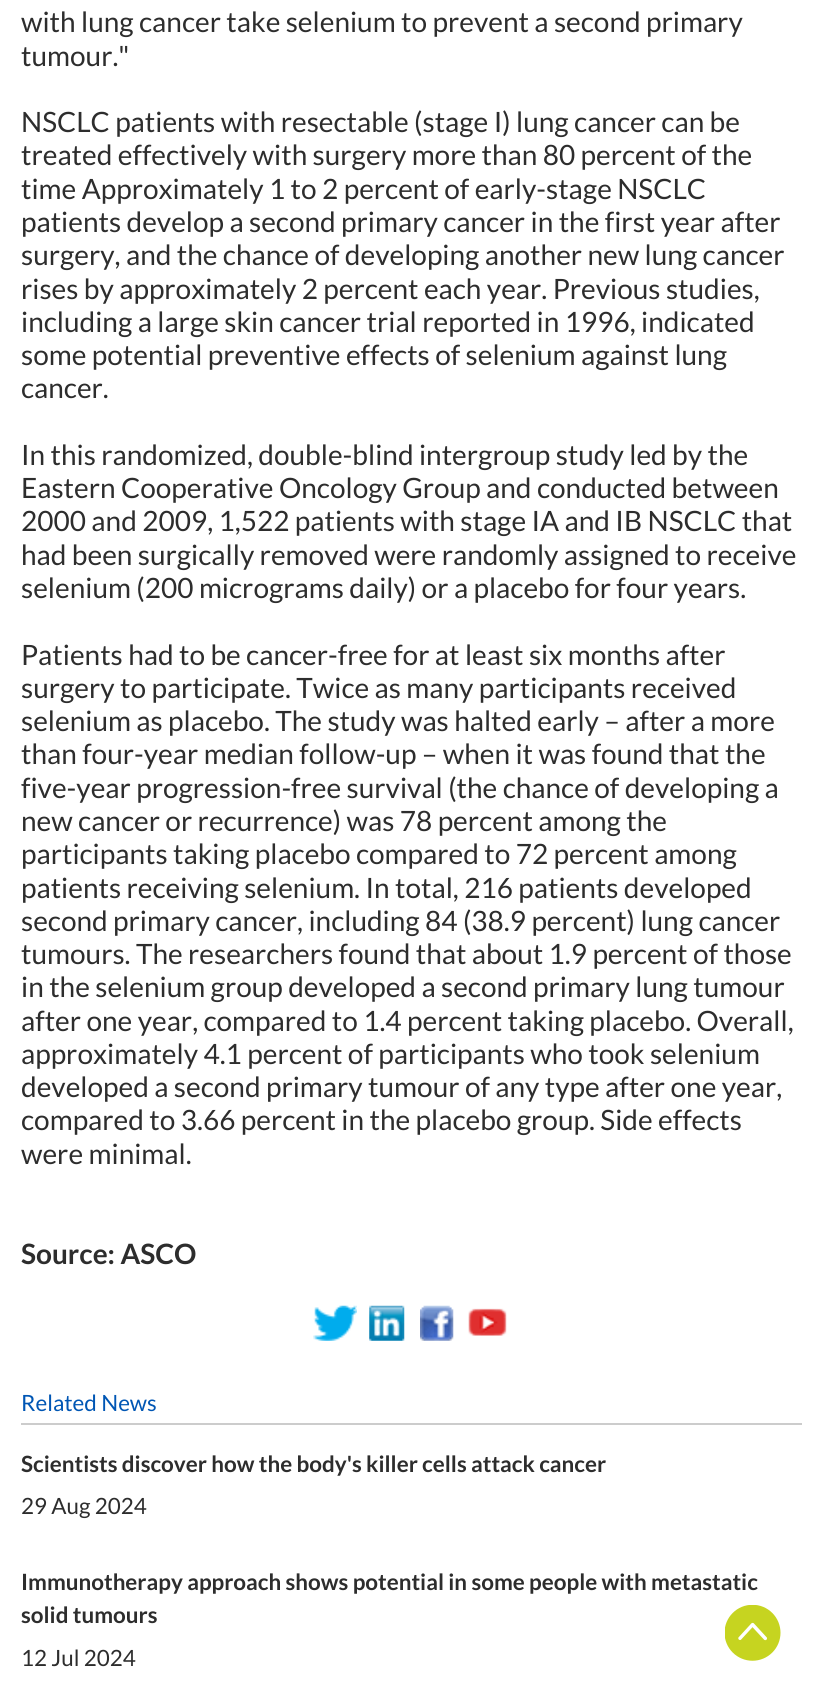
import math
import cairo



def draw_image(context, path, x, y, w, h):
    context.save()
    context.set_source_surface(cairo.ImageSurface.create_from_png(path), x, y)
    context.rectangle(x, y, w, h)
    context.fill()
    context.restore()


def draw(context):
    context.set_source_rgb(1, 1, 1)
    context.paint()
    draw_image(context, "images/1.png", 313, 1305, 44, 36)
    draw_image(context, "images/2.png", 369, 1305, 36, 36)
    draw_image(context, "images/3.png", 420, 1305, 34, 36)
    draw_image(context, "images/4.png", 468, 1308, 39, 28)
    context.set_source_rgb(204 / 255, 204 / 255, 204 / 255)
    context.rectangle(21, 1423, 781, 2)
    context.fill()
    draw_image(context, "images/5.png", 725, 1605, 56, 56)
    context.select_font_face("Lato")
    context.set_font_size(28)
    context.set_source_rgb(45 / 255, 45 / 255, 45 / 255)
    context.move_to(21, 32)
    context.show_text("with lung cancer take selenium to prevent a second primary")
    context.move_to(21, 66)
    context.show_text("tumour.\"")
    context.move_to(21, 132)
    context.show_text("NSCLC patients with resectable (stage I) lung cancer can be")
    context.move_to(21, 165)
    context.show_text("treated effectively with surgery more than 80 percent of the")
    context.move_to(21, 199)
    context.show_text("time Approximately 1 to 2 percent of early-stage NSCLC")
    context.move_to(21, 232)
    context.show_text("patients develop a second primary cancer in the first year after")
    context.move_to(21, 265)
    context.show_text("surgery, and the chance of developing another new lung cancer")
    context.move_to(21, 299)
    context.show_text("rises by approximately 2 percent each year. Previous studies,")
    context.move_to(21, 332)
    context.show_text("including a large skin cancer trial reported in 1996, indicated")
    context.move_to(21, 365)
    context.show_text("some potential preventive effects of selenium against lung")
    context.move_to(21, 398)
    context.show_text("cancer.")
    context.move_to(21, 465)
    context.show_text("In this randomized, double-blind intergroup study led by the")
    context.move_to(21, 498)
    context.show_text("Eastern Cooperative Oncology Group and conducted between")
    context.move_to(21, 531)
    context.show_text("2000 and 2009, 1,522 patients with stage IA and IB NSCLC that")
    context.move_to(21, 565)
    context.show_text("had been surgically removed were randomly assigned to receive")
    context.move_to(21, 598)
    context.show_text("selenium (200 micrograms daily) or a placebo for four years.")
    context.move_to(21, 665)
    context.show_text("Patients had to be cancer-free for at least six months after")
    context.move_to(21, 698)
    context.show_text("surgery to participate. Twice as many participants received")
    context.move_to(21, 731)
    context.show_text("selenium as placebo. The study was halted early – after a more")
    context.move_to(21, 764)
    context.show_text("than four-year median follow-up – when it was found that the")
    context.move_to(21, 798)
    context.show_text("five-year progression-free survival (the chance of developing a")
    context.move_to(21, 831)
    context.show_text("new cancer or recurrence) was 78 percent among the")
    context.move_to(21, 864)
    context.show_text("participants taking placebo compared to 72 percent among")
    context.move_to(21, 898)
    context.show_text("patients receiving selenium. In total, 216 patients developed")
    context.move_to(21, 931)
    context.show_text("second primary cancer, including 84 (38.9 percent) lung cancer")
    context.move_to(21, 964)
    context.show_text("tumours. The researchers found that about 1.9 percent of those")
    context.move_to(21, 997)
    context.show_text("in the selenium group developed a second primary lung tumour")
    context.move_to(21, 1031)
    context.show_text("after one year, compared to 1.4 percent taking placebo. Overall,")
    context.move_to(21, 1064)
    context.show_text("approximately 4.1 percent of participants who took selenium")
    context.move_to(21, 1097)
    context.show_text("developed a second primary tumour of any type after one year,")
    context.move_to(21, 1130)
    context.show_text("compared to 3.66 percent in the placebo group. Side effects")
    context.move_to(21, 1164)
    context.show_text("were minimal.")
    context.select_font_face("Lato", cairo.FontSlant.NORMAL, cairo.FontWeight.BOLD)
    context.move_to(21, 1264)
    context.show_text("Source: ASCO")
    context.select_font_face("Lato")
    context.set_font_size(22.4)
    context.set_source_rgb(0, 86 / 255, 180 / 255)
    context.move_to(21, 1411)
    context.show_text("Related News")
    context.select_font_face("Lato", cairo.FontSlant.NORMAL, cairo.FontWeight.BOLD)
    context.set_source_rgb(45 / 255, 45 / 255, 45 / 255)
    context.move_to(21, 1472)
    context.show_text("Scientists discover how the body's killer cells attack cancer")
    context.select_font_face("Lato")
    context.move_to(21, 1514)
    context.show_text("29 Aug 2024")
    context.select_font_face("Lato", cairo.FontSlant.NORMAL, cairo.FontWeight.BOLD)
    context.move_to(21, 1590)
    context.show_text("Immunotherapy approach shows potential in some people with metastatic")
    context.move_to(21, 1623)
    context.show_text("solid tumours")
    context.select_font_face("Lato")
    context.move_to(21, 1666)
    context.show_text("12 Jul 2024")


surface = cairo.ImageSurface(cairo.Format.RGB24, 821, 1694)
context = cairo.Context(surface)
options = cairo.FontOptions()
options.set_hint_metrics(cairo.HintMetrics.OFF)
options.set_hint_style(cairo.HintStyle.NONE)
context.set_font_options(options)
context.set_miter_limit(4)
draw(context)
surface.write_to_png("out.png")
